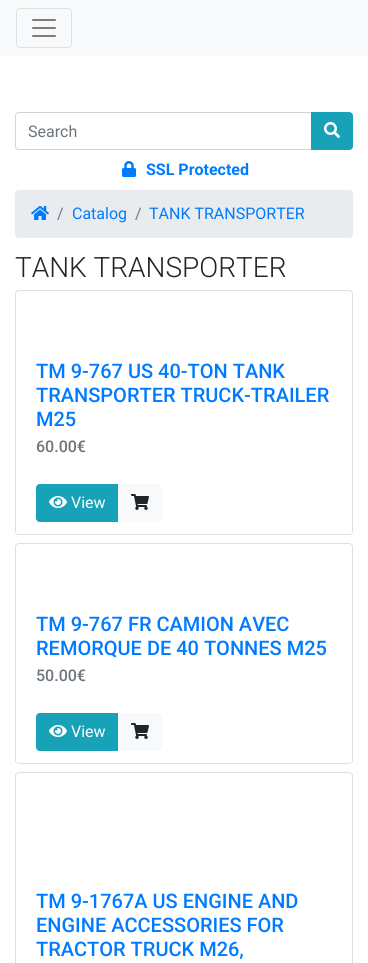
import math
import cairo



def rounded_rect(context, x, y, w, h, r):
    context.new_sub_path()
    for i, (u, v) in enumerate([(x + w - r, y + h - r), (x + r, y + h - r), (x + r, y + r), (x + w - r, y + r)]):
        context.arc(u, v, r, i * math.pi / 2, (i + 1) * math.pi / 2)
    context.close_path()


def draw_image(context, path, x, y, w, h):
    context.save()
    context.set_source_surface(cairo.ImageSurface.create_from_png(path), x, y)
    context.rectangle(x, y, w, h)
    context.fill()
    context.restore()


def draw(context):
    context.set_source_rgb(1, 1, 1)
    context.paint()
    context.set_source_rgb(248 / 255, 249 / 255, 250 / 255)
    context.rectangle(0, 0, 368, 56)
    context.fill()
    rounded_rect(context, 16.5, 8.5, 55, 39, 3.5)
    context.set_source_rgb(223 / 255, 224 / 255, 225 / 255)
    context.set_line_width(1)
    context.stroke()
    draw_image(context, "images/1.png", 32, 19, 24, 18)
    context.new_path()
    context.move_to(19, 112.5)
    context.line_to(311.5, 112.5)
    context.line_to(311.5, 149.5)
    context.line_to(19, 149.5)
    context.curve_to(17, 149.5, 15.5, 148, 15.5, 146)
    context.line_to(15.5, 116)
    context.curve_to(15.5, 114, 17, 112.5, 19, 112.5)
    context.close_path()
    context.set_source_rgb(206 / 255, 212 / 255, 218 / 255)
    context.stroke()
    context.set_source_rgb(23 / 255, 162 / 255, 184 / 255)
    context.new_path()
    context.move_to(311.5, 112.5)
    context.line_to(349, 112.5)
    context.curve_to(351, 112.5, 352.5, 114, 352.5, 116)
    context.line_to(352.5, 146)
    context.curve_to(352.5, 148, 351, 149.5, 349, 149.5)
    context.line_to(311.5, 149.5)
    context.close_path()
    context.fill_preserve()
    context.stroke()
    draw_image(context, "images/2.png", 324, 122, 16, 16)
    draw_image(context, "images/3.png", 122, 161, 14, 16)
    context.set_source_rgb(233 / 255, 236 / 255, 239 / 255)
    rounded_rect(context, 15, 190, 338, 48, 4)
    context.fill()
    draw_image(context, "images/4.png", 31, 206, 18, 14)
    rounded_rect(context, 15.5, 290.5, 337, 244, 3.5)
    context.set_source_rgb(223 / 255, 223 / 255, 223 / 255)
    context.stroke()
    context.set_source_rgb(1, 1, 1)
    context.new_path()
    context.move_to(16, 484)
    context.line_to(352, 484)
    context.line_to(352, 531)
    context.curve_to(352, 532.5, 350.5, 534, 349, 534)
    context.line_to(19, 534)
    context.curve_to(17.5, 534, 16, 532.5, 16, 531)
    context.close_path()
    context.fill()
    context.set_source_rgb(23 / 255, 162 / 255, 184 / 255)
    context.new_path()
    context.move_to(40, 484.5)
    context.line_to(118.5, 484.5)
    context.line_to(118.5, 521.5)
    context.line_to(40, 521.5)
    context.curve_to(38, 521.5, 36.5, 520, 36.5, 518)
    context.line_to(36.5, 488)
    context.curve_to(36.5, 486, 38, 484.5, 40, 484.5)
    context.close_path()
    context.fill_preserve()
    context.stroke()
    draw_image(context, "images/5.png", 49, 496, 18, 12)
    context.set_source_rgb(248 / 255, 249 / 255, 250 / 255)
    context.new_path()
    context.move_to(118, 484)
    context.line_to(158, 484)
    context.curve_to(160, 484, 162, 486, 162, 488)
    context.line_to(162, 518)
    context.curve_to(162, 520, 160, 522, 158, 522)
    context.line_to(118, 522)
    context.close_path()
    context.fill()
    draw_image(context, "images/6.png", 131, 494, 18, 16)
    rounded_rect(context, 15.5, 543.5, 337, 220, 3.5)
    context.set_source_rgb(223 / 255, 223 / 255, 223 / 255)
    context.stroke()
    context.set_source_rgb(1, 1, 1)
    context.new_path()
    context.move_to(16, 713)
    context.line_to(352, 713)
    context.line_to(352, 760)
    context.curve_to(352, 761.5, 350.5, 763, 349, 763)
    context.line_to(19, 763)
    context.curve_to(17.5, 763, 16, 761.5, 16, 760)
    context.close_path()
    context.fill()
    context.set_source_rgb(23 / 255, 162 / 255, 184 / 255)
    context.new_path()
    context.move_to(40, 713.5)
    context.line_to(118.5, 713.5)
    context.line_to(118.5, 750.5)
    context.line_to(40, 750.5)
    context.curve_to(38, 750.5, 36.5, 749, 36.5, 747)
    context.line_to(36.5, 717)
    context.curve_to(36.5, 715, 38, 713.5, 40, 713.5)
    context.close_path()
    context.fill_preserve()
    context.stroke()
    draw_image(context, "images/5.png", 49, 725, 18, 12)
    context.set_source_rgb(248 / 255, 249 / 255, 250 / 255)
    context.new_path()
    context.move_to(118, 713)
    context.line_to(158, 713)
    context.curve_to(160, 713, 162, 715, 162, 717)
    context.line_to(162, 747)
    context.curve_to(162, 749, 160, 751, 158, 751)
    context.line_to(118, 751)
    context.close_path()
    context.fill()
    draw_image(context, "images/6.png", 131, 723, 18, 16)
    rounded_rect(context, 15.5, 772.5, 337, 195, 3.5)
    context.set_source_rgb(223 / 255, 223 / 255, 223 / 255)
    context.stroke()
    context.select_font_face("Roboto")
    context.set_font_size(16)
    context.set_source_rgb(108 / 255, 117 / 255, 125 / 255)
    context.move_to(28, 137)
    context.show_text("Search")
    context.select_font_face("Roboto", cairo.FontSlant.NORMAL, cairo.FontWeight.BOLD)
    context.set_source_rgb(0, 123 / 255, 1)
    context.move_to(146, 175)
    context.show_text("SSL Protected")
    context.select_font_face("Roboto")
    context.set_source_rgb(108 / 255, 117 / 255, 125 / 255)
    context.move_to(57, 219)
    context.show_text("/")
    context.set_source_rgb(0, 123 / 255, 1)
    context.move_to(72, 219)
    context.show_text("Catalog")
    context.set_source_rgb(108 / 255, 117 / 255, 125 / 255)
    context.move_to(135, 219)
    context.show_text("/")
    context.set_source_rgb(0, 123 / 255, 1)
    context.move_to(149, 219)
    context.show_text("TANK TRANSPORTER")
    context.select_font_face("Roboto Light")
    context.set_font_size(28)
    context.set_source_rgb(33 / 255, 37 / 255, 41 / 255)
    context.move_to(15, 277)
    context.show_text("TANK TRANSPORTER")
    context.select_font_face("Roboto Medium")
    context.set_font_size(20)
    context.set_source_rgb(0, 123 / 255, 1)
    context.move_to(36, 378)
    context.show_text("TM 9-767 US 40-TON TANK")
    context.move_to(36, 402)
    context.show_text("TRANSPORTER TRUCK-TRAILER")
    context.move_to(36, 426)
    context.show_text("M25")
    context.set_font_size(16)
    context.set_source_rgb(108 / 255, 117 / 255, 125 / 255)
    context.move_to(36, 452)
    context.show_text("60.00€")
    context.select_font_face("Roboto")
    context.set_source_rgb(1, 1, 1)
    context.move_to(71, 508)
    context.show_text("View")
    context.select_font_face("Roboto Medium")
    context.set_font_size(20)
    context.set_source_rgb(0, 123 / 255, 1)
    context.move_to(36, 631)
    context.show_text("TM 9-767 FR CAMION AVEC")
    context.move_to(36, 655)
    context.show_text("REMORQUE DE 40 TONNES M25")
    context.set_font_size(16)
    context.set_source_rgb(108 / 255, 117 / 255, 125 / 255)
    context.move_to(36, 681)
    context.show_text("50.00€")
    context.select_font_face("Roboto")
    context.set_source_rgb(1, 1, 1)
    context.move_to(71, 737)
    context.show_text("View")
    context.select_font_face("Roboto Medium")
    context.set_font_size(20)
    context.set_source_rgb(0, 123 / 255, 1)
    context.move_to(36, 908)
    context.show_text("TM 9-1767A US ENGINE AND")
    context.move_to(36, 932)
    context.show_text("ENGINE ACCESSORIES FOR")
    context.move_to(36, 956)
    context.show_text("TRACTOR TRUCK M26,")


surface = cairo.ImageSurface(cairo.Format.RGB24, 368, 963)
context = cairo.Context(surface)
options = cairo.FontOptions()
options.set_hint_metrics(cairo.HintMetrics.OFF)
options.set_hint_style(cairo.HintStyle.NONE)
context.set_font_options(options)
context.set_miter_limit(4)
draw(context)
surface.write_to_png("out.png")
